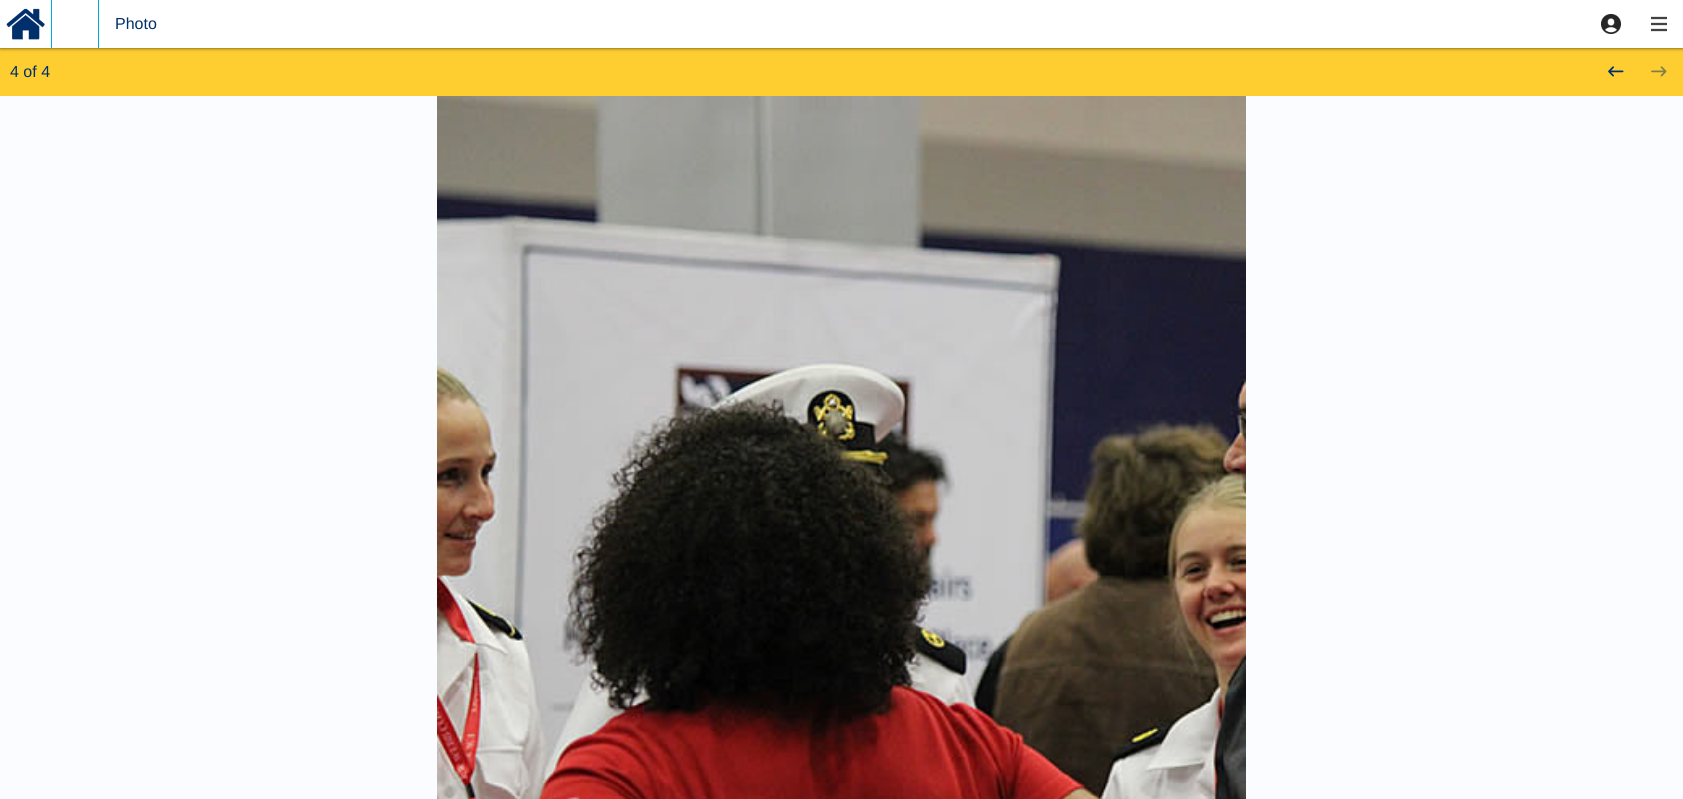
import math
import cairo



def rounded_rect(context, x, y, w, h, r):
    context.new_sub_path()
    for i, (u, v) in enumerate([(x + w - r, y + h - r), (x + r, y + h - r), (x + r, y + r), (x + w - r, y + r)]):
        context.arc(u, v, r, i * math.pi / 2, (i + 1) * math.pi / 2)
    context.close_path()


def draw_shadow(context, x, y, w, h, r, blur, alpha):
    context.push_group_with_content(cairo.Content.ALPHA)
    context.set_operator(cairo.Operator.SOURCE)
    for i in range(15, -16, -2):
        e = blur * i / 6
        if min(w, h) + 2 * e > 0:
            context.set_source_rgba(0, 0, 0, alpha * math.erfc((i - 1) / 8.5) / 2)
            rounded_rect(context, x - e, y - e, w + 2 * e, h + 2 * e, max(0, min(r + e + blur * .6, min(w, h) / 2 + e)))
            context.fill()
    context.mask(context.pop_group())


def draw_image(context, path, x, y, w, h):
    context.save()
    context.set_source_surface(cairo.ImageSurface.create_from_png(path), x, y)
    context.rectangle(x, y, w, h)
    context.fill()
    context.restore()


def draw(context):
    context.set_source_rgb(250 / 255, 252 / 255, 1)
    context.paint()
    context.set_source_rgb(254 / 255, 205 / 255, 47 / 255)
    context.rectangle(0, 48, 1683, 48)
    context.fill()
    context.set_source_rgb(0, 0, 0)
    draw_shadow(context, 0, 0, 1683, 48, 0, 2, 0.7)
    context.set_source_rgb(1, 1, 1)
    context.rectangle(0, 0, 1683, 48)
    context.fill()
    draw_image(context, "images/1.png", 6, 0, 46, 48)
    context.set_source_rgb(0, 171 / 255, 220 / 255)
    context.rectangle(98, 0, 1, 48)
    context.fill()
    draw_image(context, "images/2.png", 1601, 14, 20, 20)
    draw_image(context, "images/3.png", 1651, 16, 16, 16)
    draw_image(context, "images/4.png", 1608, 66, 16, 11)
    draw_image(context, "images/5.png", 1651, 66, 16, 11)
    draw_image(context, "images/6.png", 437, 96, 809, 703)
    context.select_font_face("Liberation Sans")
    context.set_font_size(16)
    context.set_source_rgb(0, 47 / 255, 108 / 255)
    context.move_to(115, 29)
    context.show_text("Photo")
    context.move_to(10, 77)
    context.show_text("4 of 4")


surface = cairo.ImageSurface(cairo.Format.RGB24, 1683, 799)
context = cairo.Context(surface)
options = cairo.FontOptions()
options.set_hint_metrics(cairo.HintMetrics.OFF)
options.set_hint_style(cairo.HintStyle.NONE)
context.set_font_options(options)
context.set_miter_limit(4)
draw(context)
surface.write_to_png("out.png")
